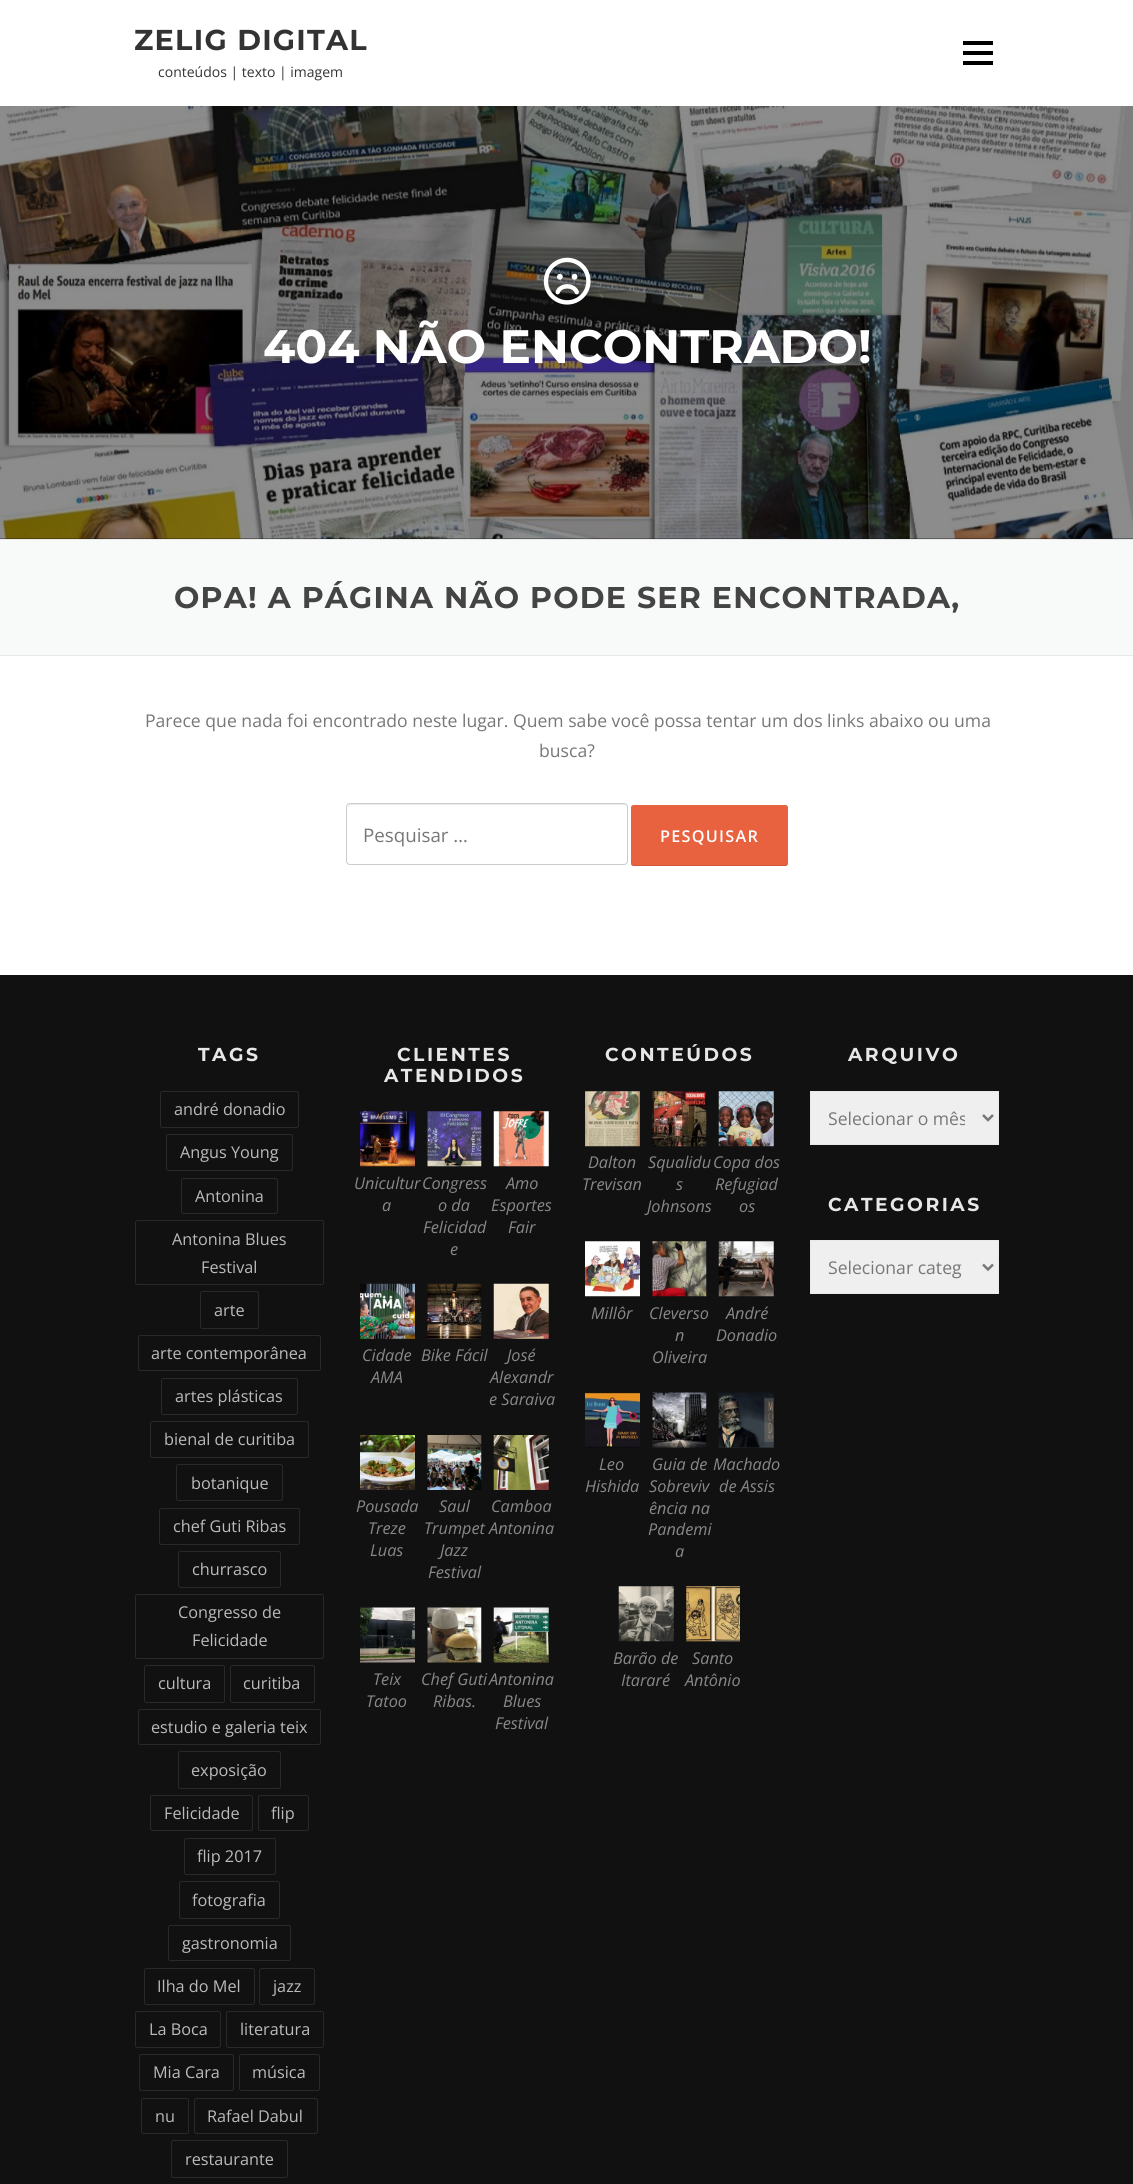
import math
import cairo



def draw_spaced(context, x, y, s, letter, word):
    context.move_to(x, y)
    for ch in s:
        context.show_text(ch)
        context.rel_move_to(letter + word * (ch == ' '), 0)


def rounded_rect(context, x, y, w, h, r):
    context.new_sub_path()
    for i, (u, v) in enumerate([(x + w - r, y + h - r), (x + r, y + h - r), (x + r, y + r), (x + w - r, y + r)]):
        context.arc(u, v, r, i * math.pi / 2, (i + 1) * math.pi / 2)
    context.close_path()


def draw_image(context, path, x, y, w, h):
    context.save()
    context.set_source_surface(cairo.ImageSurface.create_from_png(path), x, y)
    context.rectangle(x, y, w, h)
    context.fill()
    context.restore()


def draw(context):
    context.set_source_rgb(1, 1, 1)
    context.paint()
    context.set_source_rgb(0, 0, 0)
    context.rectangle(963, 51, 30, 4)
    context.fill()
    context.rectangle(963, 41, 30, 4)
    context.fill()
    context.rectangle(963, 61, 30, 4)
    context.fill()
    context.set_source_rgb(19 / 255, 19 / 255, 19 / 255)
    context.rectangle(0, 538, 1133, 1)
    context.fill()
    draw_image(context, "images/1.png", 0, 106, 1133, 433)
    draw_image(context, "images/2.png", 543, 257, 48, 48)
    context.set_source_rgb(248 / 255, 249 / 255, 249 / 255)
    context.rectangle(0, 540, 1133, 115)
    context.fill()
    context.set_source_rgb(233 / 255, 233 / 255, 233 / 255)
    context.rectangle(0, 539, 1133, 1)
    context.fill()
    context.rectangle(0, 655, 1133, 1)
    context.fill()
    context.set_source_rgb(235 / 255, 235 / 255, 235 / 255)
    context.new_path()
    context.move_to(350, 805)
    context.line_to(624, 805)
    context.line_to(626, 806)
    context.line_to(626, 808)
    context.line_to(626, 806)
    context.curve_to(626, 805, 625, 804, 624, 804)
    context.line_to(350, 804)
    context.curve_to(349, 804, 348, 805, 348, 806)
    context.line_to(348, 808)
    context.curve_to(348, 806, 349, 805, 350, 805)
    context.close_path()
    context.fill()
    rounded_rect(context, 346.5, 803.5, 281, 61, 3.5)
    context.set_source_rgb(204 / 255, 204 / 255, 204 / 255)
    context.set_line_width(1)
    context.stroke()
    context.set_source_rgb(232 / 255, 98 / 255, 64 / 255)
    rounded_rect(context, 631, 805, 157, 61, 2.5)
    context.fill()
    context.set_source_rgba(0, 0, 0, 0.1)
    context.new_path()
    context.move_to(631, 862)
    context.curve_to(631, 864, 631, 866, 633, 866)
    context.line_to(786, 866)
    context.curve_to(788, 866, 788, 864, 788, 862)
    context.curve_to(788, 864, 786, 865, 785, 865)
    context.line_to(634, 865)
    context.curve_to(632, 865, 631, 864, 631, 862)
    context.close_path()
    context.fill()
    context.set_source_rgb(17 / 255, 17 / 255, 17 / 255)
    context.rectangle(0, 975, 1133, 1209)
    context.fill()
    rounded_rect(context, 160.5, 1091.5, 138, 36, 2)
    context.set_source_rgb(41 / 255, 41 / 255, 41 / 255)
    context.stroke()
    rounded_rect(context, 166.5, 1134.5, 126, 36, 2)
    context.stroke()
    rounded_rect(context, 181.5, 1178.5, 96, 35, 2)
    context.stroke()
    rounded_rect(context, 135.5, 1220.5, 188, 64, 2)
    context.stroke()
    rounded_rect(context, 200.5, 1291.5, 58, 37, 2)
    context.stroke()
    rounded_rect(context, 138.5, 1335.5, 182, 35, 2)
    context.stroke()
    rounded_rect(context, 161.5, 1378.5, 136, 36, 2)
    context.stroke()
    rounded_rect(context, 150.5, 1421.5, 158, 36, 2)
    context.stroke()
    rounded_rect(context, 176.5, 1464.5, 106, 36, 2)
    context.stroke()
    rounded_rect(context, 159.5, 1508.5, 140, 36, 2)
    context.stroke()
    rounded_rect(context, 178.5, 1551.5, 102, 36, 2)
    context.stroke()
    rounded_rect(context, 135.5, 1594.5, 188, 64, 2)
    context.stroke()
    rounded_rect(context, 144.5, 1665.5, 80, 37, 2)
    context.stroke()
    rounded_rect(context, 230.5, 1665.5, 84, 37, 2)
    context.stroke()
    rounded_rect(context, 138.5, 1709.5, 182, 35, 2)
    context.stroke()
    rounded_rect(context, 178.5, 1751.5, 102, 37, 2)
    context.stroke()
    rounded_rect(context, 150.5, 1795.5, 102, 35, 2)
    context.stroke()
    rounded_rect(context, 258.5, 1795.5, 50, 35, 2)
    context.stroke()
    rounded_rect(context, 184.5, 1838.5, 91, 36, 2)
    context.stroke()
    rounded_rect(context, 179.5, 1881.5, 100, 37, 2)
    context.stroke()
    rounded_rect(context, 168.5, 1925.5, 122, 35, 2)
    context.stroke()
    rounded_rect(context, 144.5, 1968.5, 110, 36, 2)
    context.stroke()
    rounded_rect(context, 259.5, 1968.5, 55, 36, 2)
    context.stroke()
    rounded_rect(context, 135.5, 2011.5, 85, 36, 2)
    context.stroke()
    rounded_rect(context, 226.5, 2011.5, 97, 36, 2)
    context.stroke()
    rounded_rect(context, 139.5, 2054.5, 94, 36, 2)
    context.stroke()
    rounded_rect(context, 239.5, 2054.5, 80, 36, 2)
    context.stroke()
    rounded_rect(context, 141.5, 2098.5, 47, 35, 2)
    context.stroke()
    rounded_rect(context, 194.5, 2098.5, 123, 35, 2)
    context.stroke()
    rounded_rect(context, 171.5, 2140.5, 116, 37, 2)
    context.stroke()
    draw_image(context, "images/3.png", 360, 1111, 55, 56)
    draw_image(context, "images/4.png", 427, 1111, 55, 56)
    draw_image(context, "images/5.png", 493, 1111, 56, 56)
    draw_image(context, "images/6.png", 360, 1283, 55, 56)
    draw_image(context, "images/7.png", 427, 1283, 55, 56)
    draw_image(context, "images/8.png", 493, 1283, 56, 56)
    draw_image(context, "images/9.png", 360, 1435, 55, 55)
    draw_image(context, "images/10.png", 427, 1435, 55, 55)
    draw_image(context, "images/11.png", 493, 1435, 56, 55)
    draw_image(context, "images/12.png", 360, 1607, 55, 56)
    draw_image(context, "images/13.png", 427, 1607, 55, 56)
    draw_image(context, "images/14.png", 493, 1607, 56, 56)
    draw_image(context, "images/15.png", 585, 1091, 55, 56)
    draw_image(context, "images/16.png", 652, 1091, 55, 56)
    draw_image(context, "images/17.png", 718, 1091, 56, 56)
    draw_image(context, "images/18.png", 585, 1241, 55, 56)
    draw_image(context, "images/19.png", 652, 1241, 55, 56)
    draw_image(context, "images/20.png", 718, 1241, 56, 56)
    draw_image(context, "images/21.png", 585, 1392, 55, 56)
    draw_image(context, "images/22.png", 652, 1392, 55, 56)
    draw_image(context, "images/23.png", 718, 1392, 56, 56)
    draw_image(context, "images/24.png", 618, 1586, 56, 56)
    draw_image(context, "images/25.png", 686, 1586, 54, 56)
    context.set_source_rgb(239 / 255, 239 / 255, 239 / 255)
    context.rectangle(810.5, 1091.5, 188, 53)
    context.fill_preserve()
    context.set_source_rgb(233 / 255, 233 / 255, 233 / 255)
    context.stroke()
    context.new_path()
    context.move_to(983, 1115)
    context.line_to(988, 1120)
    context.line_to(993, 1115)
    context.set_source_rgb(119 / 255, 119 / 255, 119 / 255)
    context.set_line_width(2.5)
    context.stroke()
    context.set_source_rgb(239 / 255, 239 / 255, 239 / 255)
    context.rectangle(810.5, 1240.5, 188, 53)
    context.fill_preserve()
    context.set_source_rgb(233 / 255, 233 / 255, 233 / 255)
    context.set_line_width(1)
    context.stroke()
    context.new_path()
    context.move_to(983, 1264.5)
    context.line_to(988, 1269.5)
    context.line_to(993, 1264.5)
    context.set_source_rgb(119 / 255, 119 / 255, 119 / 255)
    context.set_line_width(2.5)
    context.stroke()
    context.select_font_face("Montserrat", cairo.FontSlant.NORMAL, cairo.FontWeight.BOLD)
    context.set_font_size(28.75)
    context.set_source_rgb(51 / 255, 51 / 255, 51 / 255)
    draw_spaced(context, 134, 50, "ZELIG DIGITAL", 1.25, 0)
    context.select_font_face("Open Sans")
    context.set_font_size(14)
    context.move_to(158, 77)
    context.show_text("conteúdos | texto | imagem")
    context.select_font_face("Montserrat", cairo.FontSlant.NORMAL, cairo.FontWeight.BOLD)
    context.set_font_size(46.9)
    context.set_source_rgb(1, 1, 1)
    context.move_to(263, 363)
    context.show_text("404 NÃO ENCONTRADO!")
    context.set_font_size(30)
    context.set_source_rgb(68 / 255, 68 / 255, 68 / 255)
    draw_spaced(context, 174, 608, "OPA! A PÁGINA NÃO PODE SER ENCONTRADA,", 1.25, 0)
    context.select_font_face("Open Sans")
    context.set_font_size(17.6)
    context.set_source_rgb(119 / 255, 119 / 255, 119 / 255)
    context.move_to(145, 727)
    context.show_text("Parece que nada foi encontrado neste lugar. Quem sabe você possa tentar um dos links abaixo ou uma")
    context.move_to(539, 757)
    context.show_text("busca?")
    context.set_font_size(18.75)
    context.move_to(363, 842)
    context.show_text("Pesquisar …")
    context.select_font_face("Open Sans SemiBold")
    context.set_font_size(16.25)
    context.set_source_rgb(1, 1, 1)
    draw_spaced(context, 660, 842, "PESQUISAR", 1.25, 0)
    context.select_font_face("Montserrat", cairo.FontSlant.NORMAL, cairo.FontWeight.BOLD)
    context.set_font_size(18.75)
    context.set_source_rgb(231 / 255, 231 / 255, 231 / 255)
    draw_spaced(context, 198, 1061, "TAGS", 2.5, 0)
    context.select_font_face("Open Sans")
    context.set_font_size(16.25)
    context.set_source_rgb(187 / 255, 187 / 255, 187 / 255)
    context.move_to(174, 1115)
    context.show_text("andré donadio")
    context.move_to(180, 1158)
    context.show_text("Angus Young")
    context.move_to(195, 1202)
    context.show_text("Antonina")
    context.move_to(172, 1245)
    context.show_text("Antonina Blues")
    context.move_to(201, 1273)
    context.show_text("Festival")
    context.move_to(214, 1316)
    context.show_text("arte")
    context.move_to(151, 1359)
    context.show_text("arte contemporânea")
    context.move_to(175, 1402)
    context.show_text("artes plásticas")
    context.move_to(164, 1445)
    context.show_text("bienal de curitiba")
    context.move_to(191, 1489)
    context.show_text("botanique")
    context.move_to(173, 1532)
    context.show_text("chef Guti Ribas")
    context.move_to(192, 1575)
    context.show_text("churrasco")
    context.move_to(178, 1618)
    context.show_text("Congresso de")
    context.move_to(192, 1646)
    context.show_text("Felicidade")
    context.move_to(158, 1689)
    context.show_text("cultura")
    context.move_to(243, 1689)
    context.show_text("curitiba")
    context.move_to(151, 1733)
    context.show_text("estudio e galeria teix")
    context.move_to(191, 1776)
    context.show_text("exposição")
    context.move_to(164, 1819)
    context.show_text("Felicidade")
    context.move_to(271, 1819)
    context.show_text("flip")
    context.move_to(197, 1862)
    context.show_text("flip 2017")
    context.move_to(192, 1906)
    context.show_text("fotografia")
    context.move_to(182, 1949)
    context.show_text("gastronomia")
    context.move_to(157, 1992)
    context.show_text("Ilha do Mel")
    context.move_to(273, 1992)
    context.show_text("jazz")
    context.move_to(149, 2035)
    context.show_text("La Boca")
    context.move_to(240, 2035)
    context.show_text("literatura")
    context.move_to(153, 2078)
    context.show_text("Mia Cara")
    context.move_to(252, 2078)
    context.show_text("música")
    context.move_to(155, 2122)
    context.show_text("nu")
    context.move_to(207, 2122)
    context.show_text("Rafael Dabul")
    context.move_to(185, 2165)
    context.show_text("restaurante")
    context.select_font_face("Montserrat", cairo.FontSlant.NORMAL, cairo.FontWeight.BOLD)
    context.set_font_size(18.75)
    context.set_source_rgb(231 / 255, 231 / 255, 231 / 255)
    draw_spaced(context, 397, 1061, "CLIENTES", 2.5, 0)
    draw_spaced(context, 384, 1082, "ATENDIDOS", 2.5, 0)
    context.select_font_face("Open Sans", cairo.FontSlant.ITALIC)
    context.set_font_size(16.25)
    context.set_source_rgb(136 / 255, 136 / 255, 136 / 255)
    context.move_to(354, 1189)
    context.show_text("Unicultur")
    context.move_to(382, 1211)
    context.show_text("a")
    context.move_to(422, 1189)
    context.show_text("Congress")
    context.move_to(438, 1211)
    context.show_text("o da")
    context.move_to(423, 1233)
    context.show_text("Felicidad")
    context.move_to(450, 1255)
    context.show_text("e")
    context.move_to(506, 1189)
    context.show_text("Amo")
    context.move_to(491, 1211)
    context.show_text("Esportes")
    context.move_to(508, 1233)
    context.show_text("Fair")
    context.move_to(362, 1361)
    context.show_text("Cidade")
    context.move_to(371, 1383)
    context.show_text("AMA")
    context.move_to(421, 1361)
    context.show_text("Bike Fácil")
    context.move_to(507, 1361)
    context.show_text("José")
    context.move_to(490, 1383)
    context.show_text("Alexandr")
    context.move_to(489, 1405)
    context.show_text("e Saraiva")
    context.move_to(356, 1512)
    context.show_text("Pousada")
    context.move_to(368, 1534)
    context.show_text("Treze")
    context.move_to(370, 1556)
    context.show_text("Luas")
    context.move_to(439, 1512)
    context.show_text("Saul")
    context.move_to(424, 1534)
    context.show_text("Trumpet Antonina")
    context.move_to(440, 1556)
    context.show_text("Jazz")
    context.move_to(428, 1578)
    context.show_text("Festival")
    context.move_to(491, 1512)
    context.show_text("Camboa")
    context.move_to(373, 1685)
    context.show_text("Teix")
    context.move_to(366, 1707)
    context.show_text("Tatoo")
    context.move_to(421, 1685)
    context.show_text("Chef Guti")
    context.move_to(433, 1707)
    context.show_text("Ribas.")
    context.move_to(489, 1685)
    context.show_text("Antonina")
    context.move_to(503, 1707)
    context.show_text("Blues")
    context.move_to(495, 1729)
    context.show_text("Festival")
    context.select_font_face("Montserrat", cairo.FontSlant.NORMAL, cairo.FontWeight.BOLD)
    context.set_font_size(18.75)
    context.set_source_rgb(231 / 255, 231 / 255, 231 / 255)
    draw_spaced(context, 605, 1061, "CONTEÚDOS", 2.5, 0)
    context.select_font_face("Open Sans", cairo.FontSlant.ITALIC)
    context.set_font_size(16.25)
    context.set_source_rgb(136 / 255, 136 / 255, 136 / 255)
    context.move_to(588, 1168)
    context.show_text("Dalton")
    context.move_to(582, 1190)
    context.show_text("Trevisan")
    context.move_to(648, 1168)
    context.show_text("Squalidu")
    context.move_to(676, 1190)
    context.show_text("s")
    context.move_to(647, 1212)
    context.show_text("Johnsons")
    context.move_to(713, 1168)
    context.show_text("Copa dos")
    context.move_to(715, 1190)
    context.show_text("Refugiad")
    context.move_to(739, 1212)
    context.show_text("os")
    context.move_to(591, 1319)
    context.show_text("Millôr")
    context.move_to(649, 1319)
    context.show_text("Cleverso")
    context.move_to(675, 1341)
    context.show_text("n")
    context.move_to(652, 1363)
    context.show_text("Oliveira")
    context.move_to(726, 1319)
    context.show_text("André")
    context.move_to(716, 1341)
    context.show_text("Donadio")
    context.move_to(599, 1470)
    context.show_text("Leo")
    context.move_to(585, 1492)
    context.show_text("Hishida")
    context.move_to(652, 1470)
    context.show_text("Guia de")
    context.move_to(649, 1492)
    context.show_text("Sobreviv")
    context.move_to(649, 1514)
    context.show_text("ência na")
    context.move_to(648, 1535)
    context.show_text("Pandemi")
    context.move_to(675, 1557)
    context.show_text("a")
    context.move_to(713, 1470)
    context.show_text("Machado")
    context.move_to(719, 1492)
    context.show_text("de Assis")
    context.move_to(613, 1664)
    context.show_text("Barão de")
    context.move_to(621, 1686)
    context.show_text("Itararé")
    context.move_to(692, 1664)
    context.show_text("Santo")
    context.move_to(685, 1686)
    context.show_text("Antônio")
    context.select_font_face("Montserrat", cairo.FontSlant.NORMAL, cairo.FontWeight.BOLD)
    context.set_font_size(18.75)
    context.set_source_rgb(231 / 255, 231 / 255, 231 / 255)
    draw_spaced(context, 848, 1061, "ARQUIVO", 2.5, 0)
    context.save()
    context.rectangle(829, 1105, 136, 26)
    context.clip()
    context.select_font_face("Open Sans")
    context.set_font_size(17.6)
    context.set_source_rgb(119 / 255, 119 / 255, 119 / 255)
    context.move_to(828, 1125)
    context.show_text("Selecionar o mês")
    context.restore()
    draw_spaced(context, 828, 1211, "CATEGORIAS", 2.5, 0)
    context.select_font_face("Open Sans")
    context.set_font_size(17.6)
    context.set_source_rgb(119 / 255, 119 / 255, 119 / 255)
    context.move_to(828, 1274)
    context.show_text("Selecionar categ")


surface = cairo.ImageSurface(cairo.Format.RGB24, 1133, 2184)
context = cairo.Context(surface)
options = cairo.FontOptions()
options.set_hint_metrics(cairo.HintMetrics.OFF)
options.set_hint_style(cairo.HintStyle.NONE)
context.set_font_options(options)
context.set_miter_limit(4)
draw(context)
surface.write_to_png("out.png")
